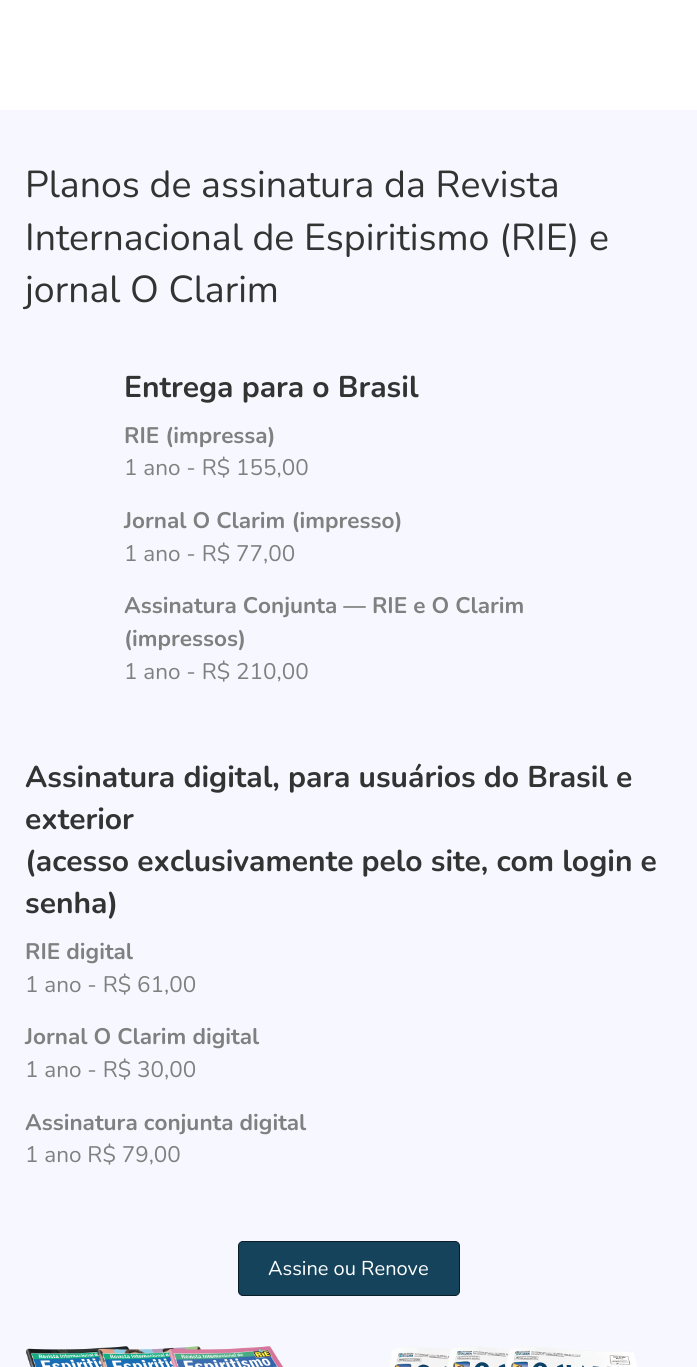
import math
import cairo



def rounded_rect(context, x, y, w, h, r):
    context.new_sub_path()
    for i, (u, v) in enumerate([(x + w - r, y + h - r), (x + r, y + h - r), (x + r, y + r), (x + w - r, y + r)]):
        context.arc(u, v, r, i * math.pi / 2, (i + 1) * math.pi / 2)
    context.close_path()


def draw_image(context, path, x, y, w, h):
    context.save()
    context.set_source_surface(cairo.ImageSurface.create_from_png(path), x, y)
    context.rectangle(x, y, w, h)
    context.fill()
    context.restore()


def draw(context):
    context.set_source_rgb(247 / 255, 248 / 255, 1)
    context.paint()
    context.set_source_rgb(1, 1, 1)
    context.rectangle(0, 0, 697, 110)
    context.fill()
    context.set_source_rgb(21 / 255, 67 / 255, 91 / 255)
    rounded_rect(context, 238.5, 1241.5, 221, 54, 4.5)
    context.fill_preserve()
    context.set_source_rgb(10 / 255, 30 / 255, 41 / 255)
    context.set_line_width(1)
    context.stroke()
    draw_image(context, "images/1.png", 25, 1346, 612, 21)
    context.select_font_face("Nunito")
    context.set_font_size(37.5)
    context.set_source_rgb(51 / 255, 51 / 255, 51 / 255)
    context.move_to(25, 197)
    context.show_text("Planos de assinatura da Revista")
    context.move_to(25, 250)
    context.show_text("Internacional de Espiritismo (RIE) e")
    context.move_to(25, 302)
    context.show_text("jornal O Clarim")
    context.select_font_face("Nunito", cairo.FontSlant.NORMAL, cairo.FontWeight.BOLD)
    context.set_font_size(30)
    context.move_to(124, 397)
    context.show_text("Entrega para o Brasil")
    context.set_font_size(22.5)
    context.set_source_rgb(128 / 255, 128 / 255, 128 / 255)
    context.move_to(124, 443)
    context.show_text("RIE (impressa)")
    context.select_font_face("Nunito")
    context.move_to(124, 475)
    context.show_text("1 ano - R$ 155,00")
    context.select_font_face("Nunito", cairo.FontSlant.NORMAL, cairo.FontWeight.BOLD)
    context.move_to(124, 528)
    context.show_text("Jornal O Clarim (impresso)")
    context.select_font_face("Nunito")
    context.move_to(124, 561)
    context.show_text("1 ano - R$ 77,00")
    context.select_font_face("Nunito", cairo.FontSlant.NORMAL, cairo.FontWeight.BOLD)
    context.move_to(124, 613)
    context.show_text("Assinatura Conjunta — RIE e O Clarim")
    context.move_to(124, 646)
    context.show_text("(impressos)")
    context.select_font_face("Nunito")
    context.move_to(124, 679)
    context.show_text("1 ano - R$ 210,00")
    context.select_font_face("Nunito", cairo.FontSlant.NORMAL, cairo.FontWeight.BOLD)
    context.set_font_size(30)
    context.set_source_rgb(51 / 255, 51 / 255, 51 / 255)
    context.move_to(25, 787)
    context.show_text("Assinatura digital, para usuários do Brasil e")
    context.move_to(25, 829)
    context.show_text("exterior")
    context.move_to(25, 871)
    context.show_text("(acesso exclusivamente pelo site, com login e")
    context.move_to(25, 913)
    context.show_text("senha)")
    context.set_font_size(22.5)
    context.set_source_rgb(128 / 255, 128 / 255, 128 / 255)
    context.move_to(25, 959)
    context.show_text("RIE digital")
    context.select_font_face("Nunito")
    context.move_to(25, 992)
    context.show_text("1 ano - R$ 61,00")
    context.select_font_face("Nunito", cairo.FontSlant.NORMAL, cairo.FontWeight.BOLD)
    context.move_to(25, 1044)
    context.show_text("Jornal O Clarim digital")
    context.select_font_face("Nunito")
    context.move_to(25, 1077)
    context.show_text("1 ano - R$ 30,00")
    context.select_font_face("Nunito", cairo.FontSlant.NORMAL, cairo.FontWeight.BOLD)
    context.move_to(25, 1130)
    context.show_text("Assinatura conjunta digital")
    context.select_font_face("Nunito")
    context.move_to(25, 1162)
    context.show_text("1 ano R$ 79,00")
    context.set_font_size(20)
    context.set_source_rgb(1, 1, 1)
    context.move_to(268, 1275)
    context.show_text("Assine ou Renove")


surface = cairo.ImageSurface(cairo.Format.RGB24, 697, 1367)
context = cairo.Context(surface)
options = cairo.FontOptions()
options.set_hint_metrics(cairo.HintMetrics.OFF)
options.set_hint_style(cairo.HintStyle.NONE)
context.set_font_options(options)
context.set_miter_limit(4)
draw(context)
surface.write_to_png("out.png")
